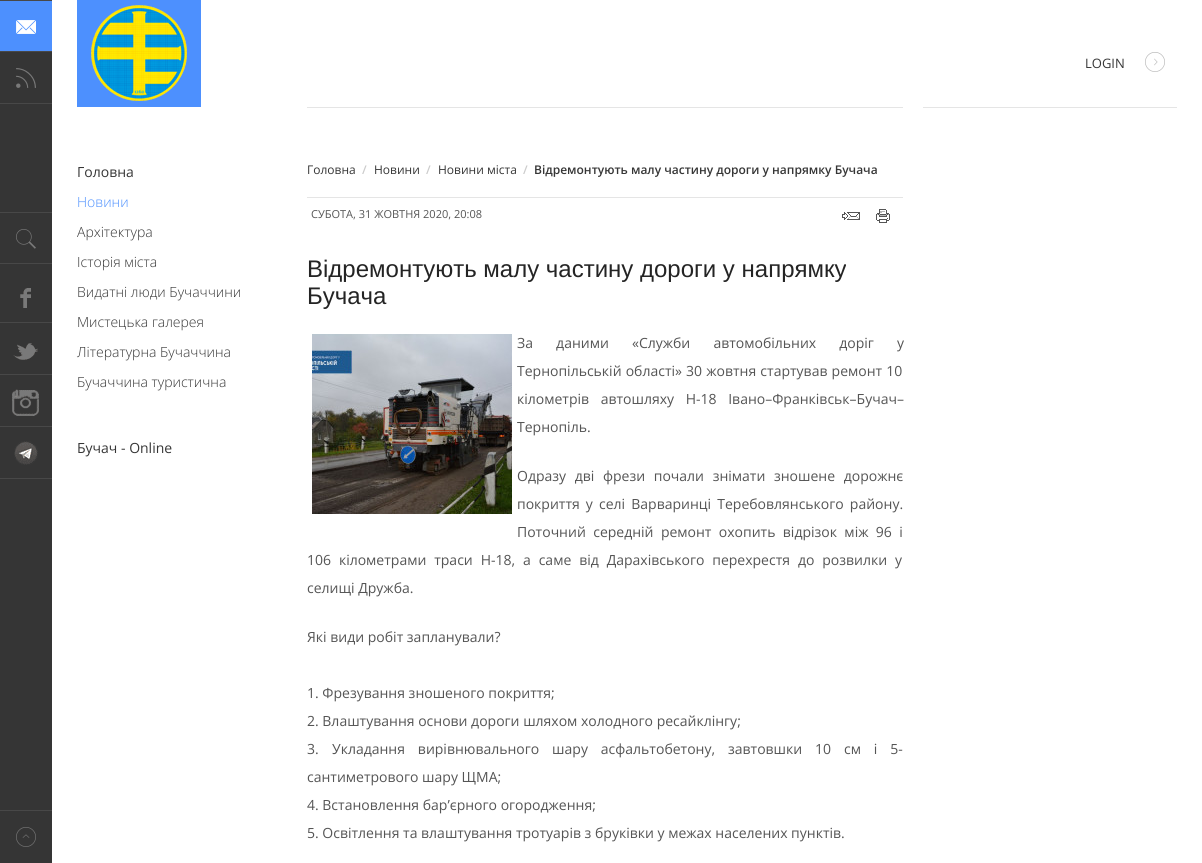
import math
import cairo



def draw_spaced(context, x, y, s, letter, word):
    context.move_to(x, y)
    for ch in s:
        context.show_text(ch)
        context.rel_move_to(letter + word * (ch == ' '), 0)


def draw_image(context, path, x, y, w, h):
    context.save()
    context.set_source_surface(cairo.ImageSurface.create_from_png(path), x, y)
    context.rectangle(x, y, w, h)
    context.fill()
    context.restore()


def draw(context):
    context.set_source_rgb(53 / 255, 53 / 255, 53 / 255)
    context.paint()
    context.set_source_rgb(1, 1, 1)
    context.rectangle(52, 0, 1150, 863)
    context.fill()
    context.set_source_rgb(77 / 255, 144 / 255, 254 / 255)
    context.rectangle(0, 1, 52, 50)
    context.fill()
    context.set_source_rgb(72 / 255, 72 / 255, 72 / 255)
    context.rectangle(0, 0, 52, 1)
    context.fill()
    context.rectangle(0, 51, 52, 1)
    context.fill()
    draw_image(context, "images/1.png", 16, 20, 20, 14)
    context.rectangle(0, 103, 52, 1)
    context.fill()
    draw_image(context, "images/2.png", 16, 68, 20, 20)
    context.rectangle(0, 212, 52, 1)
    context.fill()
    context.rectangle(0, 263, 52, 1)
    context.fill()
    draw_image(context, "images/3.png", 16, 229, 20, 20)
    draw_image(context, "images/4.png", 20, 288, 11, 20)
    context.rectangle(0, 322, 52, 1)
    context.fill()
    draw_image(context, "images/5.png", 13, 343, 25, 17)
    context.rectangle(0, 374, 52, 1)
    context.fill()
    draw_image(context, "images/6.png", 12, 389, 27, 27)
    context.rectangle(0, 426, 52, 1)
    context.fill()
    draw_image(context, "images/7.png", 14, 441, 24, 24)
    context.rectangle(0, 478, 52, 1)
    context.fill()
    context.set_source_rgb(77 / 255, 144 / 255, 254 / 255)
    context.rectangle(77, 0, 124, 107)
    context.fill()
    draw_image(context, "images/8.png", 91, 5, 96, 96)
    draw_image(context, "images/9.png", 1145, 52, 20, 20)
    context.set_source_rgb(72 / 255, 72 / 255, 72 / 255)
    context.rectangle(0, 810, 52, 1)
    context.fill()
    draw_image(context, "images/10.png", 16, 827, 20, 20)
    context.set_source_rgb(229 / 255, 229 / 255, 229 / 255)
    context.rectangle(923, 107, 254, 1)
    context.fill()
    context.rectangle(307, 107, 596, 1)
    context.fill()
    context.rectangle(307, 197, 596, 1)
    context.fill()
    draw_image(context, "images/11.png", 842, 212, 18, 8)
    draw_image(context, "images/12.png", 876, 209, 14, 14)
    draw_image(context, "images/13.png", 312, 334, 200, 180)
    context.select_font_face("Open Sans")
    context.set_font_size(13)
    context.set_source_rgb(54 / 255, 54 / 255, 54 / 255)
    context.move_to(1085, 68)
    context.show_text("LOGIN")
    context.set_font_size(14)
    context.move_to(77, 177)
    context.show_text("Головна")
    context.select_font_face("Open Sans Light")
    context.set_source_rgb(77 / 255, 144 / 255, 254 / 255)
    context.move_to(77, 207)
    context.show_text("Новини")
    context.set_source_rgb(54 / 255, 54 / 255, 54 / 255)
    context.move_to(77, 237)
    context.show_text("Архітектура")
    context.move_to(77, 267)
    context.show_text("Історія міста")
    context.move_to(77, 297)
    context.show_text("Видатні люди Бучаччини")
    context.move_to(77, 327)
    context.show_text("Мистецька галерея")
    context.move_to(77, 357)
    context.show_text("Літературна Бучаччина")
    context.move_to(77, 387)
    context.show_text("Бучаччина туристична")
    context.select_font_face("Open Sans")
    context.move_to(77, 453)
    context.show_text("Бучач - Online")
    context.set_font_size(12)
    context.move_to(307, 174)
    context.show_text("Головна")
    context.select_font_face("Open Sans SemiBold")
    context.set_source_rgb(204 / 255, 204 / 255, 204 / 255)
    context.move_to(362, 174)
    context.show_text("/")
    context.select_font_face("Open Sans")
    context.set_source_rgb(54 / 255, 54 / 255, 54 / 255)
    context.move_to(374, 174)
    context.show_text("Новини")
    context.select_font_face("Open Sans SemiBold")
    context.set_source_rgb(204 / 255, 204 / 255, 204 / 255)
    context.move_to(426, 174)
    context.show_text("/")
    context.select_font_face("Open Sans")
    context.set_source_rgb(54 / 255, 54 / 255, 54 / 255)
    context.move_to(438, 174)
    context.show_text("Новини міста")
    context.select_font_face("Open Sans SemiBold")
    context.set_source_rgb(204 / 255, 204 / 255, 204 / 255)
    context.move_to(523, 174)
    context.show_text("/")
    context.set_source_rgb(54 / 255, 54 / 255, 54 / 255)
    context.move_to(534, 174)
    context.show_text("Відремонтують малу частину дороги у напрямку Бучача")
    context.select_font_face("Open Sans")
    context.set_font_size(11)
    context.set_source_rgb(85 / 255, 85 / 255, 85 / 255)
    context.move_to(311, 218)
    context.show_text("СУБОТА, 31 ЖОВТНЯ 2020, 20:08")
    context.select_font_face("Liberation Sans")
    context.set_font_size(24)
    context.set_source_rgb(36 / 255, 36 / 255, 36 / 255)
    context.move_to(307, 277)
    context.show_text("Відремонтують малу частину дороги у напрямку")
    context.move_to(307, 304)
    context.show_text("Бучача")
    context.select_font_face("Open Sans")
    context.set_font_size(14)
    context.set_source_rgb(85 / 255, 85 / 255, 85 / 255)
    draw_spaced(context, 517, 348, "За даними «Служби автомобільних доріг у", 0, 19.5)
    draw_spaced(context, 517, 376, "Тернопільській області» 30 жовтня стартував ремонт 10", 0, 0.5)
    draw_spaced(context, 517, 404, "кілометрів автошляху Н-18 Івано–Франківськ–Бучач–", 0, 8)
    context.move_to(517, 432)
    context.show_text("Тернопіль.")
    draw_spaced(context, 517, 481, "Одразу дві фрези почали знімати зношене дорожнє", 0, 5)
    draw_spaced(context, 517, 509, "покриття у селі Варваринці Теребовлянського району.", 0, 2.5)
    draw_spaced(context, 517, 537, "Поточний середній ремонт охопить відрізок між 96 і", 0, 3.75)
    draw_spaced(context, 307, 565, "106 кілометрами траси Н-18, а саме від Дарахівського перехрестя до розвилки у", 0, 4.25)
    context.move_to(307, 593)
    context.show_text("селищі Дружба.")
    context.move_to(307, 642)
    context.show_text("Які види робіт запланували?")
    context.move_to(307, 698)
    context.show_text("1. Фрезування зношеного покриття;")
    context.move_to(307, 726)
    context.show_text("2. Влаштування основи дороги шляхом холодного ресайклінгу;")
    context.move_to(307, 754)
    context.show_text("3.")
    draw_spaced(context, 332, 754, "Укладання вирівнювального шару асфальтобетону, завтовшки 10 см і 5-", 0, 9.25)
    context.move_to(307, 782)
    context.show_text("сантиметрового шару ЩМА;")
    context.move_to(307, 810)
    context.show_text("4. Встановлення бар’єрного огородження;")
    context.move_to(307, 838)
    context.show_text("5. Освітлення та влаштування тротуарів з бруківки у межах населених пунктів.")


surface = cairo.ImageSurface(cairo.Format.RGB24, 1202, 863)
context = cairo.Context(surface)
options = cairo.FontOptions()
options.set_hint_metrics(cairo.HintMetrics.OFF)
options.set_hint_style(cairo.HintStyle.NONE)
context.set_font_options(options)
context.set_miter_limit(4)
draw(context)
surface.write_to_png("out.png")
